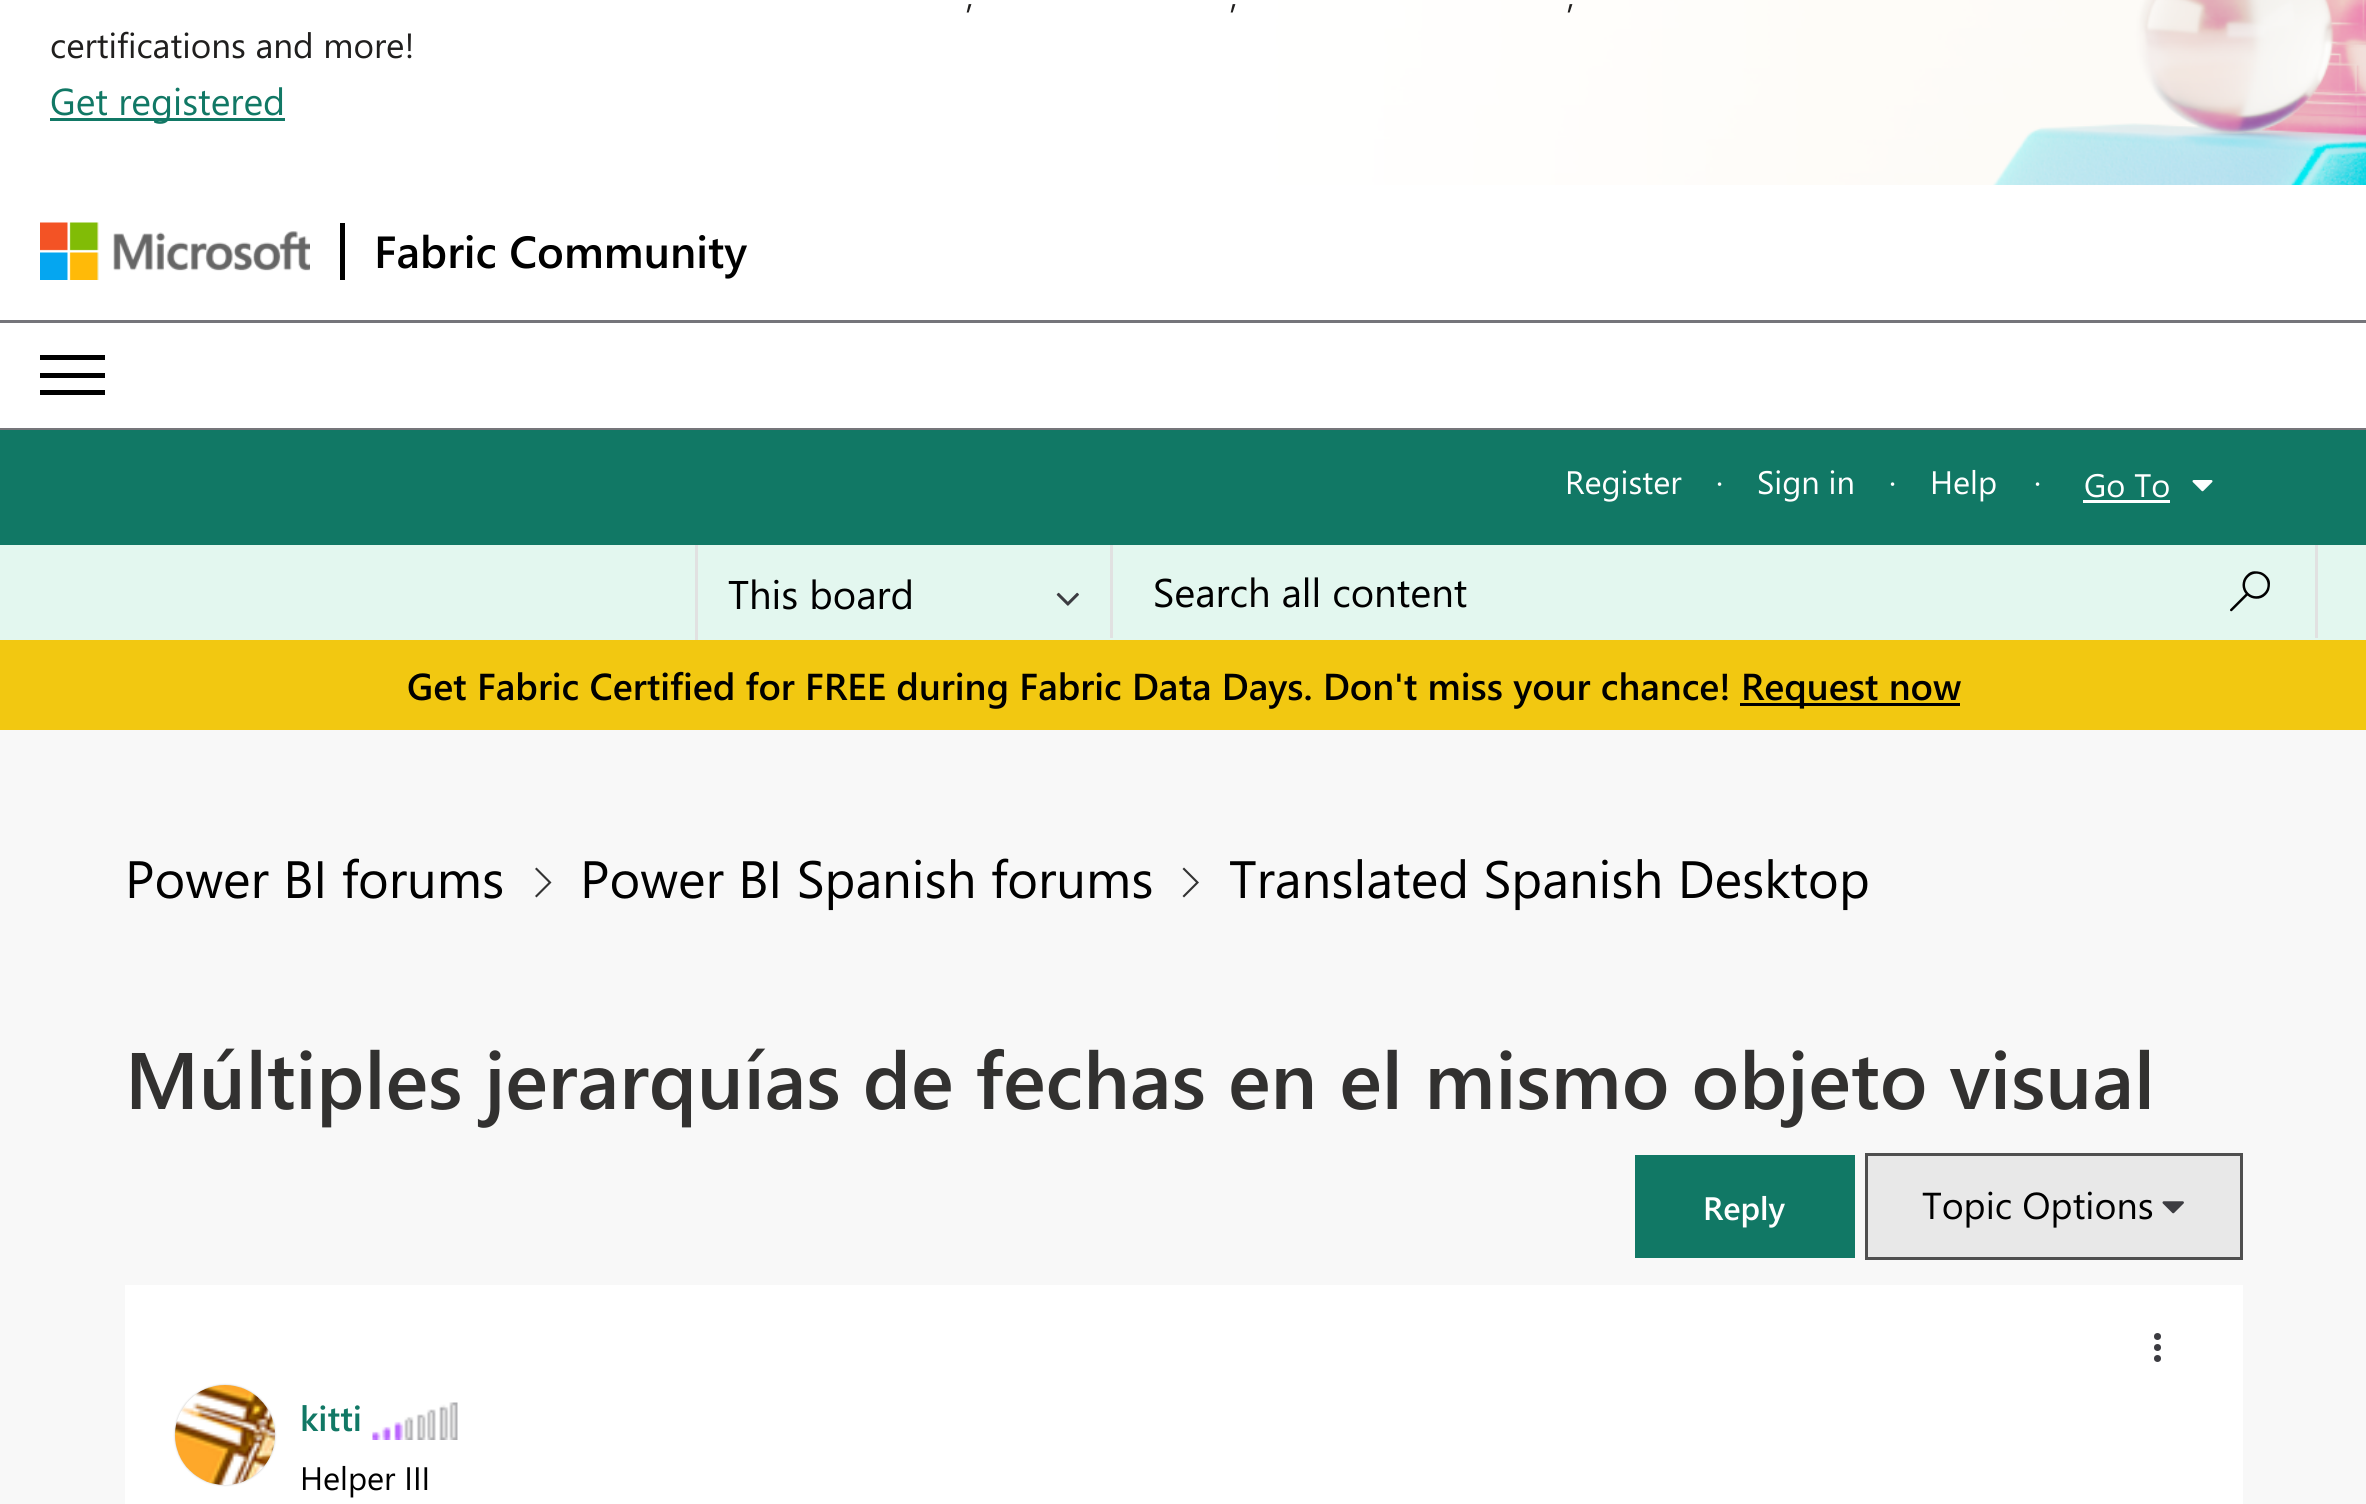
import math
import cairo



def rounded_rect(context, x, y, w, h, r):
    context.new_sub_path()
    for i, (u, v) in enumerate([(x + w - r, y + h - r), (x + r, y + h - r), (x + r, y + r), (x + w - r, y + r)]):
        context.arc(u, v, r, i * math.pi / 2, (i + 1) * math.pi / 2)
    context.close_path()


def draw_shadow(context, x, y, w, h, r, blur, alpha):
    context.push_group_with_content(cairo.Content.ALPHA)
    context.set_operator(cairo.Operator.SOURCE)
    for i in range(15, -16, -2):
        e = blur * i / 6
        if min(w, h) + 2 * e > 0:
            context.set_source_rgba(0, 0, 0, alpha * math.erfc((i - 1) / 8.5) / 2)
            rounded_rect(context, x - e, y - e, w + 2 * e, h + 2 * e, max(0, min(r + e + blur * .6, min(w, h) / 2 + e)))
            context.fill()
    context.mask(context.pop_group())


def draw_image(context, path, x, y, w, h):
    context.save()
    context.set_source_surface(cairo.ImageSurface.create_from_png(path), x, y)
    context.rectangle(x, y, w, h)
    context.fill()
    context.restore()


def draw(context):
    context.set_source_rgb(248 / 255, 248 / 255, 248 / 255)
    context.paint()
    draw_image(context, "images/1.png", 0, 0, 2366, 185)
    context.set_source_rgb(17 / 255, 120 / 255, 101 / 255)
    context.rectangle(50, 118, 235, 3)
    context.fill()
    context.set_source_rgb(1, 1, 1)
    context.rectangle(0, 185, 2366, 243)
    context.fill()
    draw_image(context, "images/2.png", 40, 222, 270, 58)
    context.set_source_rgb(0, 0, 0)
    context.rectangle(340, 223, 5, 57)
    context.fill()
    context.set_source_rgb(117 / 255, 117 / 255, 122 / 255)
    context.rectangle(0, 320, 2366, 3)
    context.fill()
    context.rectangle(0, 428, 2366, 2)
    context.fill()
    context.set_source_rgb(0, 0, 0)
    context.rectangle(40, 355, 65, 5)
    context.fill()
    context.rectangle(40, 373, 65, 5)
    context.fill()
    context.rectangle(40, 390, 65, 5)
    context.fill()
    context.set_source_rgb(17 / 255, 120 / 255, 101 / 255)
    context.rectangle(0, 430, 2366, 115)
    context.fill()
    context.set_source_rgb(1, 1, 1)
    context.rectangle(2083, 500, 87, 3)
    context.fill()
    draw_image(context, "images/3.png", 2192, 480, 21, 12)
    context.set_source_rgb(227 / 255, 247 / 255, 239 / 255)
    context.rectangle(0, 545, 2366, 95)
    context.fill()
    context.set_source_rgb(225 / 255, 225 / 255, 225 / 255)
    context.rectangle(695, 545, 3, 95)
    context.fill()
    draw_image(context, "images/4.png", 1056, 592, 23, 14)
    context.rectangle(2315, 545, 3, 93)
    context.fill()
    context.rectangle(1110, 545, 3, 93)
    context.fill()
    draw_image(context, "images/5.png", 2230, 571, 40, 41)
    context.set_source_rgb(242 / 255, 200 / 255, 17 / 255)
    context.rectangle(0, 640, 2366, 90)
    context.fill()
    context.set_source_rgb(0, 0, 0)
    context.rectangle(1740, 703, 220, 3)
    context.fill()
    context.set_source_rgb(51 / 255, 51 / 255, 51 / 255)
    context.new_path()
    context.move_to(535, 896)
    context.line_to(548.5, 882.5)
    context.line_to(535, 869)
    context.line_to(536.5, 867.5)
    context.line_to(551.5, 882.5)
    context.line_to(536.5, 897.5)
    context.close_path()
    context.fill()
    context.new_path()
    context.move_to(1182.5, 896)
    context.line_to(1196, 882.5)
    context.line_to(1182.5, 869)
    context.line_to(1184, 867.5)
    context.line_to(1199, 882.5)
    context.line_to(1184, 897.5)
    context.close_path()
    context.fill()
    context.set_source_rgb(17 / 255, 120 / 255, 101 / 255)
    context.rectangle(1635, 1155, 220, 103)
    context.fill()
    context.set_source_rgb(232 / 255, 232 / 255, 232 / 255)
    context.rectangle(1866.5, 1154.5, 375, 104)
    context.fill_preserve()
    context.set_source_rgb(79 / 255, 79 / 255, 79 / 255)
    context.set_line_width(3)
    context.stroke()
    draw_image(context, "images/6.png", 2162, 1201, 22, 13)
    context.set_source_rgb(1, 1, 1)
    context.rectangle(125, 1285, 2118, 219)
    context.fill()
    context.set_source_rgb(60 / 255, 60 / 255, 65 / 255)
    context.arc(2157.5, 1336.5, 3.5, 0, 2 * math.pi)
    context.fill()
    context.arc(2157.5, 1347.5, 3.5, 0, 2 * math.pi)
    context.fill()
    context.arc(2157.5, 1358.5, 3.5, 0, 2 * math.pi)
    context.fill()
    context.set_source_rgb(196 / 255, 196 / 255, 196 / 255)
    draw_shadow(context, 175, 1385, 100, 100, 50, 1, 1)
    draw_image(context, "images/7.png", 175, 1385, 100, 100)
    draw_image(context, "images/8.png", 372, 1402, 86, 38)
    context.select_font_face("Segoe UI")
    context.set_font_size(35)
    context.set_source_rgb(32 / 255, 31 / 255, 30 / 255)
    context.move_to(966, 8)
    context.show_text(",")
    context.move_to(1230, 8)
    context.show_text(",")
    context.move_to(1567, 8)
    context.show_text(",")
    context.move_to(50, 58)
    context.show_text("certifications and more!")
    context.set_font_size(37.5)
    context.set_source_rgb(17 / 255, 120 / 255, 101 / 255)
    context.move_to(50, 115)
    context.show_text("Get registered")
    context.select_font_face("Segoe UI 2 SemiBold")
    context.set_font_size(45)
    context.set_source_rgb(0, 0, 0)
    context.move_to(374, 268)
    context.show_text("Fabric Community")
    context.select_font_face("Segoe UI")
    context.set_font_size(32.5)
    context.set_source_rgb(1, 1, 1)
    context.move_to(1565, 494)
    context.show_text("Register")
    context.move_to(1716, 494)
    context.show_text("·")
    context.move_to(1757, 494)
    context.show_text("Sign in")
    context.move_to(1889, 494)
    context.show_text("·")
    context.move_to(1930, 494)
    context.show_text("Help")
    context.move_to(2034, 494)
    context.show_text("·")
    context.move_to(2084, 497)
    context.show_text("Go To")
    context.set_font_size(40)
    context.set_source_rgb(0, 0, 0)
    context.move_to(728, 609)
    context.show_text("This board")
    context.move_to(1153, 607)
    context.show_text("Search all content")
    context.select_font_face("Segoe UI SemiBold")
    context.set_font_size(37.5)
    context.move_to(407, 700)
    context.show_text("Get Fabric Certified for FREE during Fabric Data Days. Don't miss your chance!")
    context.move_to(1741, 700)
    context.show_text("Request now")
    context.select_font_face("Segoe UI")
    context.set_font_size(52.5)
    context.move_to(125, 898)
    context.show_text("Power BI forums")
    context.move_to(580, 898)
    context.show_text("Power BI Spanish forums")
    context.move_to(1229, 898)
    context.show_text("Translated Spanish Desktop")
    context.select_font_face("Segoe UI SemiBold")
    context.set_font_size(80)
    context.set_source_rgb(50 / 255, 49 / 255, 48 / 255)
    context.move_to(125, 1109)
    context.show_text("Múltiples jerarquías de fechas en el mismo objeto visual")
    context.set_font_size(32.5)
    context.set_source_rgb(1, 1, 1)
    context.move_to(1703, 1220)
    context.show_text("Reply")
    context.select_font_face("Segoe UI")
    context.set_font_size(37.5)
    context.set_source_rgb(0, 0, 0)
    context.move_to(1922, 1219)
    context.show_text("Topic Options")
    context.select_font_face("Segoe UI SemiBold")
    context.set_font_size(35)
    context.set_source_rgb(17 / 255, 120 / 255, 101 / 255)
    context.move_to(300, 1431)
    context.show_text("kitti")
    context.select_font_face("Segoe UI")
    context.set_font_size(32.5)
    context.set_source_rgb(0, 0, 0)
    context.move_to(300, 1490)
    context.show_text("Helper III")


surface = cairo.ImageSurface(cairo.Format.RGB24, 2366, 1504)
context = cairo.Context(surface)
options = cairo.FontOptions()
options.set_hint_metrics(cairo.HintMetrics.OFF)
options.set_hint_style(cairo.HintStyle.NONE)
context.set_font_options(options)
context.set_miter_limit(4)
draw(context)
surface.write_to_png("out.png")
